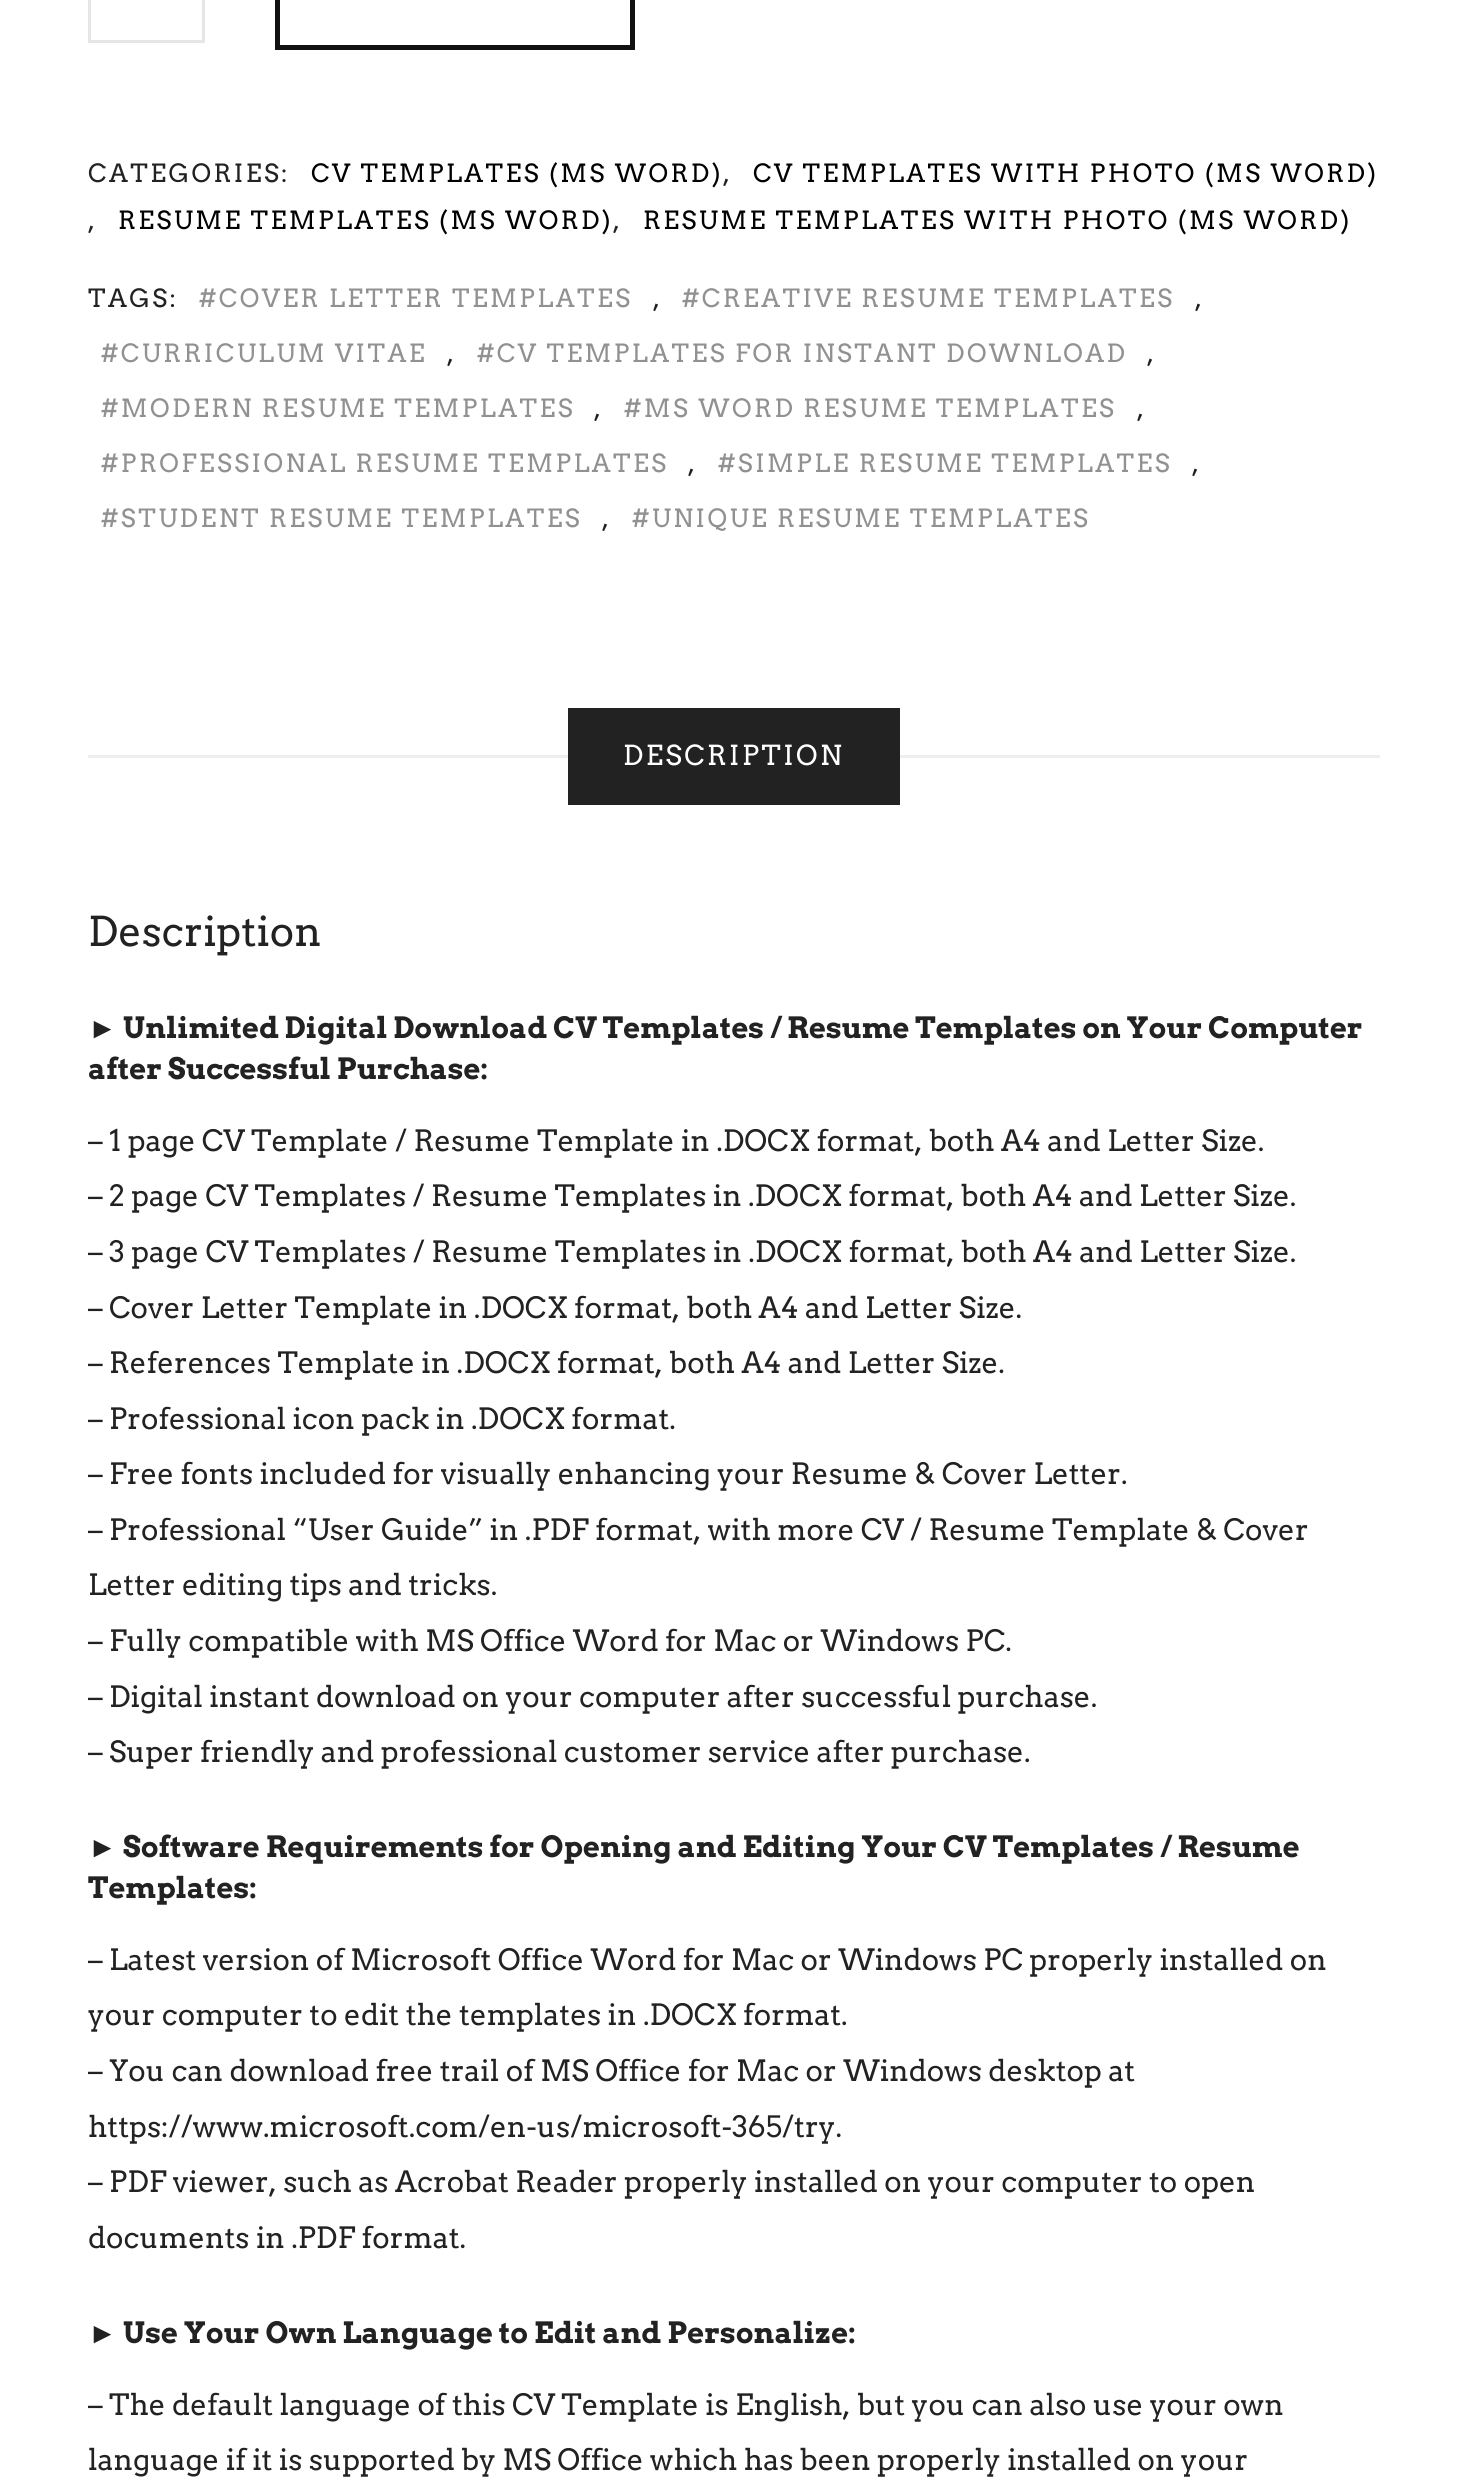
import math
import cairo



def draw_spaced(context, x, y, s, letter, word):
    context.move_to(x, y)
    for ch in s:
        context.show_text(ch)
        context.rel_move_to(letter + word * (ch == ' '), 0)


def draw(context):
    context.set_source_rgb(1, 1, 1)
    context.paint()
    context.rectangle(89.5, -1.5, 114, 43)
    context.set_source_rgb(230 / 255, 230 / 255, 230 / 255)
    context.set_line_width(3)
    context.stroke()
    context.rectangle(277.5, -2.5, 355, 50)
    context.set_source_rgb(17 / 255, 17 / 255, 17 / 255)
    context.set_line_width(5)
    context.stroke()
    context.set_source_rgb(238 / 255, 238 / 255, 238 / 255)
    context.rectangle(88, 755, 1292, 3)
    context.fill()
    context.rectangle(569.5, 709.5, 329, 94)
    context.set_source_rgb(34 / 255, 34 / 255, 34 / 255)
    context.set_line_width(3)
    context.stroke()
    context.rectangle(571, 711, 326, 91)
    context.fill()
    context.select_font_face("Arvo")
    context.set_font_size(25)
    draw_spaced(context, 88, 182, "CATEGORIES:", 2.5, 0)
    context.set_source_rgb(0, 0, 0)
    draw_spaced(context, 311, 182, "CV TEMPLATES (MS WORD)", 2.5, 0)
    context.set_source_rgb(34 / 255, 34 / 255, 34 / 255)
    draw_spaced(context, 723, 182, ",", 2.5, 0)
    context.set_source_rgb(0, 0, 0)
    draw_spaced(context, 753, 182, "CV TEMPLATES WITH PHOTO (MS WORD)", 2.5, 0)
    context.set_source_rgb(34 / 255, 34 / 255, 34 / 255)
    draw_spaced(context, 88, 229, ",", 2.5, 0)
    context.set_source_rgb(0, 0, 0)
    draw_spaced(context, 118, 229, "RESUME TEMPLATES (MS WORD)", 2.5, 0)
    context.set_source_rgb(34 / 255, 34 / 255, 34 / 255)
    draw_spaced(context, 613, 229, ",", 2.5, 0)
    context.set_source_rgb(0, 0, 0)
    draw_spaced(context, 643, 229, "RESUME TEMPLATES WITH PHOTO (MS WORD)", 2.5, 0)
    context.set_source_rgb(34 / 255, 34 / 255, 34 / 255)
    draw_spaced(context, 88, 307, "TAGS:", 2.5, 0)
    context.set_source_rgb(145 / 255, 145 / 255, 145 / 255)
    draw_spaced(context, 199, 307, "#COVER LETTER TEMPLATES", 2.5, 0)
    context.set_source_rgb(34 / 255, 34 / 255, 34 / 255)
    draw_spaced(context, 653, 307, ",", 2.5, 0)
    context.set_source_rgb(145 / 255, 145 / 255, 145 / 255)
    draw_spaced(context, 682, 307, "#CREATIVE RESUME TEMPLATES", 2.5, 0)
    context.set_source_rgb(34 / 255, 34 / 255, 34 / 255)
    draw_spaced(context, 1195, 307, ",", 2.5, 0)
    context.set_source_rgb(145 / 255, 145 / 255, 145 / 255)
    draw_spaced(context, 101, 362, "#CURRICULUM VITAE", 2.5, 0)
    context.set_source_rgb(34 / 255, 34 / 255, 34 / 255)
    draw_spaced(context, 447, 362, ",", 2.5, 0)
    context.set_source_rgb(145 / 255, 145 / 255, 145 / 255)
    draw_spaced(context, 477, 362, "#CV TEMPLATES FOR INSTANT DOWNLOAD", 2.5, 0)
    context.set_source_rgb(34 / 255, 34 / 255, 34 / 255)
    draw_spaced(context, 1147, 362, ",", 2.5, 0)
    context.set_source_rgb(145 / 255, 145 / 255, 145 / 255)
    draw_spaced(context, 101, 417, "#MODERN RESUME TEMPLATES", 2.5, 0)
    context.set_source_rgb(34 / 255, 34 / 255, 34 / 255)
    draw_spaced(context, 594, 417, ",", 2.5, 0)
    context.set_source_rgb(145 / 255, 145 / 255, 145 / 255)
    draw_spaced(context, 624, 417, "#MS WORD RESUME TEMPLATES", 2.5, 0)
    context.set_source_rgb(34 / 255, 34 / 255, 34 / 255)
    draw_spaced(context, 1137, 417, ",", 2.5, 0)
    context.set_source_rgb(145 / 255, 145 / 255, 145 / 255)
    draw_spaced(context, 101, 472, "#PROFESSIONAL RESUME TEMPLATES", 2.5, 0)
    context.set_source_rgb(34 / 255, 34 / 255, 34 / 255)
    draw_spaced(context, 688, 472, ",", 2.5, 0)
    context.set_source_rgb(145 / 255, 145 / 255, 145 / 255)
    draw_spaced(context, 718, 472, "#SIMPLE RESUME TEMPLATES", 2.5, 0)
    context.set_source_rgb(34 / 255, 34 / 255, 34 / 255)
    draw_spaced(context, 1192, 472, ",", 2.5, 0)
    context.set_source_rgb(145 / 255, 145 / 255, 145 / 255)
    draw_spaced(context, 101, 527, "#STUDENT RESUME TEMPLATES", 2.5, 0)
    context.set_source_rgb(34 / 255, 34 / 255, 34 / 255)
    draw_spaced(context, 602, 527, ",", 2.5, 0)
    context.set_source_rgb(145 / 255, 145 / 255, 145 / 255)
    draw_spaced(context, 632, 527, "#UNIQUE RESUME TEMPLATES", 2.5, 0)
    context.set_font_size(27.5)
    context.set_source_rgb(1, 1, 1)
    draw_spaced(context, 623, 765, "DESCRIPTION", 2.5, 0)
    context.set_font_size(41)
    context.set_source_rgb(34 / 255, 34 / 255, 34 / 255)
    context.move_to(88, 946)
    context.show_text("Description")
    context.select_font_face("Liberation Serif", cairo.FontSlant.NORMAL, cairo.FontWeight.BOLD)
    context.set_font_size(29.25)
    context.move_to(88, 1038)
    context.show_text("►")
    context.select_font_face("Arvo", cairo.FontSlant.NORMAL, cairo.FontWeight.BOLD)
    draw_spaced(context, 123, 1038, "Unlimited Digital Download CV Templates / Resume Templates on Your Computer", 0, -0.1)
    context.move_to(88, 1079)
    context.show_text("after Successful Purchase:")
    context.select_font_face("Arvo")
    context.move_to(88, 1151)
    context.show_text("– 1 page CV Template / Resume Template in .DOCX format, both A4 and Letter Size.")
    context.move_to(88, 1206)
    context.show_text("– 2 page CV Templates / Resume Templates in .DOCX format, both A4 and Letter Size.")
    context.move_to(88, 1262)
    context.show_text("– 3 page CV Templates / Resume Templates in .DOCX format, both A4 and Letter Size.")
    context.move_to(88, 1318)
    context.show_text("– Cover Letter Template in .DOCX format, both A4 and Letter Size.")
    context.move_to(88, 1373)
    context.show_text("– References Template in .DOCX format, both A4 and Letter Size.")
    context.move_to(88, 1429)
    context.show_text("– Professional icon pack in .DOCX format.")
    context.move_to(88, 1484)
    context.show_text("– Free fonts included for visually enhancing your Resume & Cover Letter.")
    context.move_to(88, 1540)
    context.show_text("– Professional “User Guide” in .PDF format, with more CV / Resume Template & Cover")
    context.move_to(88, 1595)
    context.show_text("Letter editing tips and tricks.")
    context.move_to(88, 1651)
    context.show_text("– Fully compatible with MS Office Word for Mac or Windows PC.")
    context.move_to(88, 1707)
    context.show_text("– Digital instant download on your computer after successful purchase.")
    draw_spaced(context, 88, 1762, "– Super friendly and professional customer service after purchase.", 0, -0.1)
    context.select_font_face("Liberation Serif", cairo.FontSlant.NORMAL, cairo.FontWeight.BOLD)
    context.move_to(88, 1857)
    context.show_text("►")
    context.select_font_face("Arvo", cairo.FontSlant.NORMAL, cairo.FontWeight.BOLD)
    context.move_to(123, 1857)
    context.show_text("Software Requirements for Opening and Editing Your CV Templates / Resume")
    context.move_to(88, 1898)
    context.show_text("Templates:")
    context.select_font_face("Arvo")
    context.move_to(88, 1970)
    context.show_text("– Latest version of Microsoft Office Word for Mac or Windows PC properly installed on")
    context.move_to(88, 2025)
    context.show_text("your computer to edit the templates in .DOCX format.")
    context.move_to(88, 2081)
    context.show_text("– You can download free trail of MS Office for Mac or Windows desktop at")
    context.move_to(88, 2137)
    context.show_text("https://www.microsoft.com/en-us/microsoft-365/try.")
    context.move_to(88, 2192)
    context.show_text("– PDF viewer, such as Acrobat Reader properly installed on your computer to open")
    context.move_to(88, 2248)
    context.show_text("documents in .PDF format.")
    context.select_font_face("Liberation Serif", cairo.FontSlant.NORMAL, cairo.FontWeight.BOLD)
    context.move_to(88, 2343)
    context.show_text("►")
    context.select_font_face("Arvo", cairo.FontSlant.NORMAL, cairo.FontWeight.BOLD)
    context.move_to(123, 2343)
    context.show_text("Use Your Own Language to Edit and Personalize:")
    context.select_font_face("Arvo")
    context.move_to(88, 2415)
    context.show_text("– The default language of this CV Template is English, but you can also use your own")
    context.move_to(88, 2470)
    context.show_text("language if it is supported by MS Office which has been properly installed on your")


surface = cairo.ImageSurface(cairo.Format.RGB24, 1466, 2482)
context = cairo.Context(surface)
options = cairo.FontOptions()
options.set_hint_metrics(cairo.HintMetrics.OFF)
options.set_hint_style(cairo.HintStyle.NONE)
context.set_font_options(options)
context.set_miter_limit(4)
draw(context)
surface.write_to_png("out.png")
